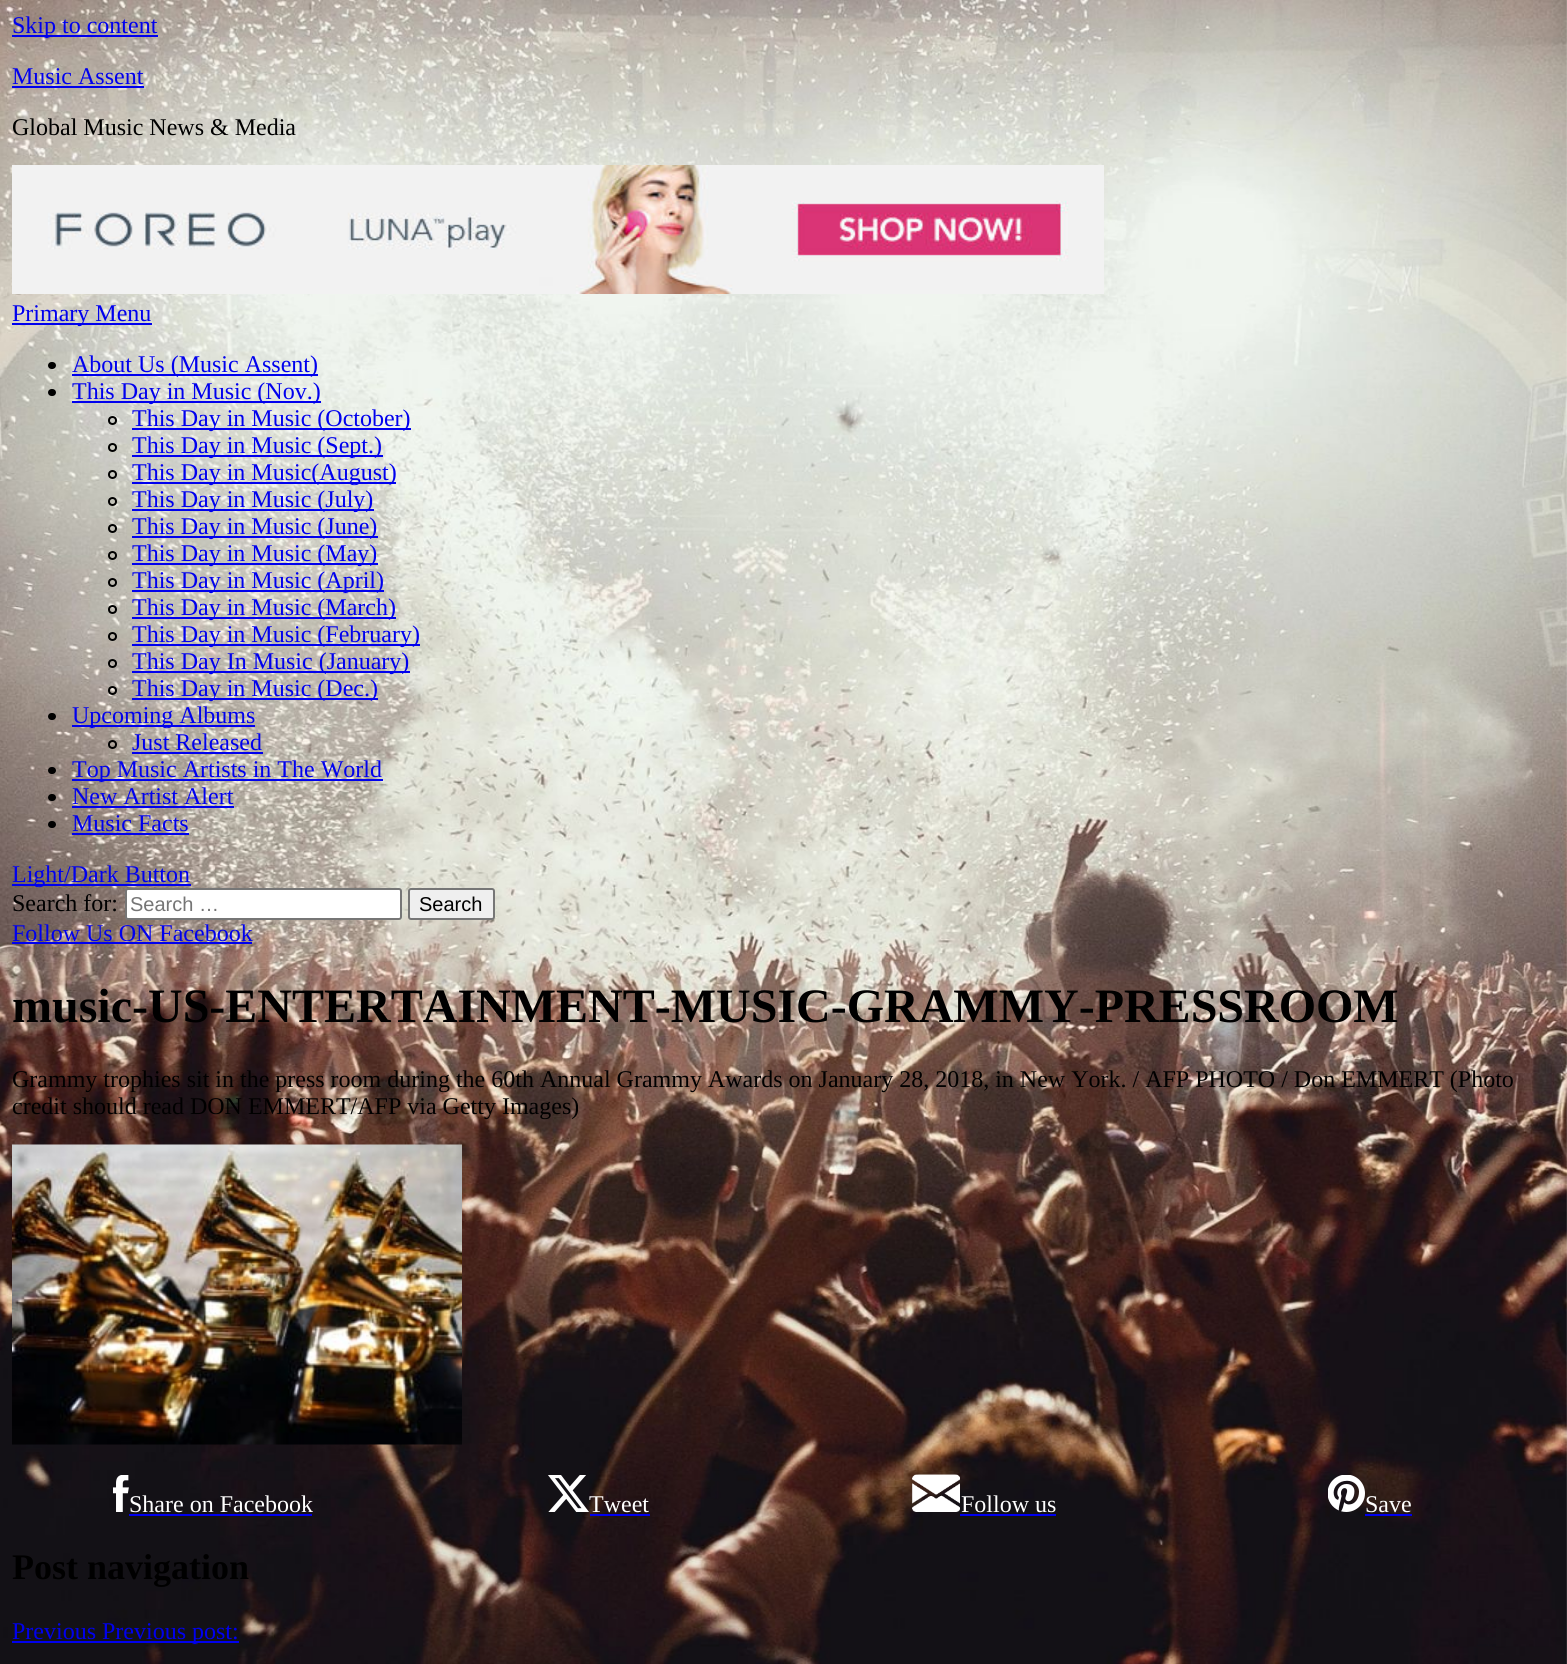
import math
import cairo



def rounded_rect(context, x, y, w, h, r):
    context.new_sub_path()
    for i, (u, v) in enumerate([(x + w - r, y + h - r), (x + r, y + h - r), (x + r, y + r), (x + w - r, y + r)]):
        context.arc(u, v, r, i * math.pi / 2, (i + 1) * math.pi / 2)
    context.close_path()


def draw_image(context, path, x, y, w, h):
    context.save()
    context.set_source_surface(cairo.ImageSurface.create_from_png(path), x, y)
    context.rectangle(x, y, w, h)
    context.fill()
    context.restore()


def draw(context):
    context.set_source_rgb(1, 1, 1)
    context.paint()
    draw_image(context, "images/1.png", 0, 0, 1567, 1664)
    context.set_source_rgb(0, 0, 238 / 255)
    context.rectangle(12, 35, 146, 2)
    context.fill()
    context.rectangle(12, 86, 132, 2)
    context.fill()
    draw_image(context, "images/2.png", 12, 165, 1092, 129)
    context.rectangle(12, 323, 140, 2)
    context.fill()
    context.set_source_rgb(0, 0, 0)
    rounded_rect(context, 48, 362, 8, 7, 3.5)
    context.fill()
    context.set_source_rgb(0, 0, 238 / 255)
    context.rectangle(72, 374, 246, 2)
    context.fill()
    context.set_source_rgb(0, 0, 0)
    rounded_rect(context, 48, 389, 8, 7, 3.5)
    context.fill()
    context.set_source_rgb(0, 0, 238 / 255)
    context.rectangle(72, 401, 249, 2)
    context.fill()
    context.arc(112.5, 420.5, 3.5, 0, 2 * math.pi)
    context.set_source_rgb(0, 0, 0)
    context.stroke()
    context.set_source_rgb(0, 0, 238 / 255)
    context.rectangle(132, 428, 279, 2)
    context.fill()
    context.arc(112.5, 447.5, 3.5, 0, 2 * math.pi)
    context.set_source_rgb(0, 0, 0)
    context.stroke()
    context.set_source_rgb(0, 0, 238 / 255)
    context.rectangle(132, 455, 251, 2)
    context.fill()
    context.arc(112.5, 474.5, 3.5, 0, 2 * math.pi)
    context.set_source_rgb(0, 0, 0)
    context.stroke()
    context.set_source_rgb(0, 0, 238 / 255)
    context.rectangle(132, 482, 264, 2)
    context.fill()
    context.arc(112.5, 501.5, 3.5, 0, 2 * math.pi)
    context.set_source_rgb(0, 0, 0)
    context.stroke()
    context.set_source_rgb(0, 0, 238 / 255)
    context.rectangle(132, 509, 242, 2)
    context.fill()
    context.arc(112.5, 528.5, 3.5, 0, 2 * math.pi)
    context.set_source_rgb(0, 0, 0)
    context.stroke()
    context.set_source_rgb(0, 0, 238 / 255)
    context.rectangle(132, 536, 246, 2)
    context.fill()
    context.arc(112.5, 555.5, 3.5, 0, 2 * math.pi)
    context.set_source_rgb(0, 0, 0)
    context.stroke()
    context.set_source_rgb(0, 0, 238 / 255)
    context.rectangle(132, 563, 246, 2)
    context.fill()
    context.arc(112.5, 582.5, 3.5, 0, 2 * math.pi)
    context.set_source_rgb(0, 0, 0)
    context.stroke()
    context.set_source_rgb(0, 0, 238 / 255)
    context.rectangle(132, 590, 252, 2)
    context.fill()
    context.arc(112.5, 609.5, 3.5, 0, 2 * math.pi)
    context.set_source_rgb(0, 0, 0)
    context.stroke()
    context.set_source_rgb(0, 0, 238 / 255)
    context.rectangle(132, 617, 264, 2)
    context.fill()
    context.arc(112.5, 636.5, 3.5, 0, 2 * math.pi)
    context.set_source_rgb(0, 0, 0)
    context.stroke()
    context.set_source_rgb(0, 0, 238 / 255)
    context.rectangle(132, 644, 288, 2)
    context.fill()
    context.arc(112.5, 663.5, 3.5, 0, 2 * math.pi)
    context.set_source_rgb(0, 0, 0)
    context.stroke()
    context.set_source_rgb(0, 0, 238 / 255)
    context.rectangle(132, 671, 278, 2)
    context.fill()
    context.arc(112.5, 690.5, 3.5, 0, 2 * math.pi)
    context.set_source_rgb(0, 0, 0)
    context.stroke()
    context.set_source_rgb(0, 0, 238 / 255)
    context.rectangle(132, 698, 246, 2)
    context.fill()
    context.set_source_rgb(0, 0, 0)
    rounded_rect(context, 48, 713, 8, 7, 3.5)
    context.fill()
    context.set_source_rgb(0, 0, 238 / 255)
    context.rectangle(72, 725, 183, 2)
    context.fill()
    context.arc(112.5, 744.5, 3.5, 0, 2 * math.pi)
    context.set_source_rgb(0, 0, 0)
    context.stroke()
    context.set_source_rgb(0, 0, 238 / 255)
    context.rectangle(132, 752, 131, 2)
    context.fill()
    context.set_source_rgb(0, 0, 0)
    rounded_rect(context, 48, 767, 8, 7, 3.5)
    context.fill()
    context.set_source_rgb(0, 0, 238 / 255)
    context.rectangle(72, 779, 311, 2)
    context.fill()
    context.set_source_rgb(0, 0, 0)
    rounded_rect(context, 48, 794, 8, 7, 3.5)
    context.fill()
    context.set_source_rgb(0, 0, 238 / 255)
    context.rectangle(72, 806, 162, 2)
    context.fill()
    context.set_source_rgb(0, 0, 0)
    rounded_rect(context, 48, 821, 8, 7, 3.5)
    context.fill()
    context.set_source_rgb(0, 0, 238 / 255)
    context.rectangle(72, 833, 117, 2)
    context.fill()
    context.rectangle(12, 884, 179, 2)
    context.fill()
    context.set_source_rgb(1, 1, 1)
    rounded_rect(context, 126, 889, 275, 30, 2)
    context.fill_preserve()
    context.set_source_rgb(118 / 255, 118 / 255, 118 / 255)
    context.stroke()
    context.set_source_rgb(239 / 255, 239 / 255, 239 / 255)
    rounded_rect(context, 409, 889, 85, 30, 2)
    context.fill_preserve()
    context.set_source_rgb(118 / 255, 118 / 255, 118 / 255)
    context.stroke()
    context.set_source_rgb(0, 0, 238 / 255)
    context.rectangle(12, 942, 240, 2)
    context.fill()
    draw_image(context, "images/3.png", 12, 1144, 450, 301)
    draw_image(context, "images/4.png", 113, 1475, 16, 37)
    context.rectangle(129, 1514, 183, 2)
    context.fill()
    draw_image(context, "images/5.png", 548, 1475, 41, 37)
    context.rectangle(590, 1514, 60, 2)
    context.fill()
    draw_image(context, "images/6.png", 912, 1474, 48, 38)
    context.rectangle(960, 1514, 96, 2)
    context.fill()
    draw_image(context, "images/7.png", 1328, 1475, 37, 37)
    context.rectangle(1365, 1514, 47, 2)
    context.fill()
    context.rectangle(12, 1641, 227, 2)
    context.fill()
    context.select_font_face("Liberation Serif")
    context.set_font_size(24)
    context.move_to(12, 33)
    context.show_text("Skip to content")
    context.move_to(12, 84)
    context.show_text("Music Assent")
    context.set_source_rgb(0, 0, 0)
    context.move_to(12, 135)
    context.show_text("Global Music News & Media")
    context.set_source_rgb(0, 0, 238 / 255)
    context.move_to(12, 321)
    context.show_text("Primary Menu")
    context.move_to(72, 372)
    context.show_text("About Us (Music Assent)")
    context.move_to(72, 399)
    context.show_text("This Day in Music (Nov.)")
    context.move_to(132, 426)
    context.show_text("This Day in Music (October)")
    context.move_to(132, 453)
    context.show_text("This Day in Music (Sept.)")
    context.move_to(132, 480)
    context.show_text("This Day in Music(August)")
    context.move_to(132, 507)
    context.show_text("This Day in Music (July)")
    context.move_to(132, 534)
    context.show_text("This Day in Music (June)")
    context.move_to(132, 561)
    context.show_text("This Day in Music (May)")
    context.move_to(132, 588)
    context.show_text("This Day in Music (April)")
    context.move_to(132, 615)
    context.show_text("This Day in Music (March)")
    context.move_to(132, 642)
    context.show_text("This Day in Music (February)")
    context.move_to(132, 669)
    context.show_text("This Day In Music (January)")
    context.move_to(132, 696)
    context.show_text("This Day in Music (Dec.)")
    context.move_to(72, 723)
    context.show_text("Upcoming Albums")
    context.move_to(132, 750)
    context.show_text("Just Released")
    context.move_to(72, 777)
    context.show_text("Top Music Artists in The World")
    context.move_to(72, 804)
    context.show_text("New Artist Alert")
    context.move_to(72, 831)
    context.show_text("Music Facts")
    context.move_to(12, 882)
    context.show_text("Light/Dark Button")
    context.set_source_rgb(0, 0, 0)
    context.move_to(12, 911)
    context.show_text("Search for:")
    context.select_font_face("Liberation Sans")
    context.set_font_size(20)
    context.set_source_rgb(117 / 255, 117 / 255, 117 / 255)
    context.move_to(130, 911)
    context.show_text("Search …")
    context.set_source_rgb(0, 0, 0)
    context.move_to(419, 911)
    context.show_text("Search")
    context.select_font_face("Liberation Serif")
    context.set_font_size(24)
    context.set_source_rgb(0, 0, 238 / 255)
    context.move_to(12, 941)
    context.show_text("Follow Us ON Facebook")
    context.select_font_face("Liberation Serif", cairo.FontSlant.NORMAL, cairo.FontWeight.BOLD)
    context.set_font_size(48)
    context.set_source_rgb(0, 0, 0)
    context.move_to(12, 1022)
    context.show_text("music-US-ENTERTAINMENT-MUSIC-GRAMMY-PRESSROOM")
    context.select_font_face("Liberation Serif")
    context.set_font_size(24)
    context.move_to(12, 1087)
    context.show_text("Grammy trophies sit in the press room during the 60th Annual Grammy Awards on January 28, 2018, in New York. / AFP PHOTO / Don EMMERT (Photo")
    context.move_to(12, 1114)
    context.show_text("credit should read DON EMMERT/AFP via Getty Images)")
    context.set_source_rgb(1, 1, 1)
    context.move_to(129, 1512)
    context.show_text("Share on Facebook")
    context.move_to(589, 1512)
    context.show_text("Tweet")
    context.move_to(961, 1512)
    context.show_text("Follow us")
    context.move_to(1365, 1512)
    context.show_text("Save")
    context.select_font_face("Liberation Serif", cairo.FontSlant.NORMAL, cairo.FontWeight.BOLD)
    context.set_font_size(36)
    context.set_source_rgb(0, 0, 0)
    context.move_to(12, 1579)
    context.show_text("Post navigation")
    context.select_font_face("Liberation Serif")
    context.set_font_size(24)
    context.set_source_rgb(0, 0, 238 / 255)
    context.move_to(12, 1639)
    context.show_text("Previous Previous post:")


surface = cairo.ImageSurface(cairo.Format.RGB24, 1567, 1664)
context = cairo.Context(surface)
options = cairo.FontOptions()
options.set_hint_metrics(cairo.HintMetrics.OFF)
options.set_hint_style(cairo.HintStyle.NONE)
context.set_font_options(options)
context.set_miter_limit(4)
draw(context)
surface.write_to_png("out.png")
